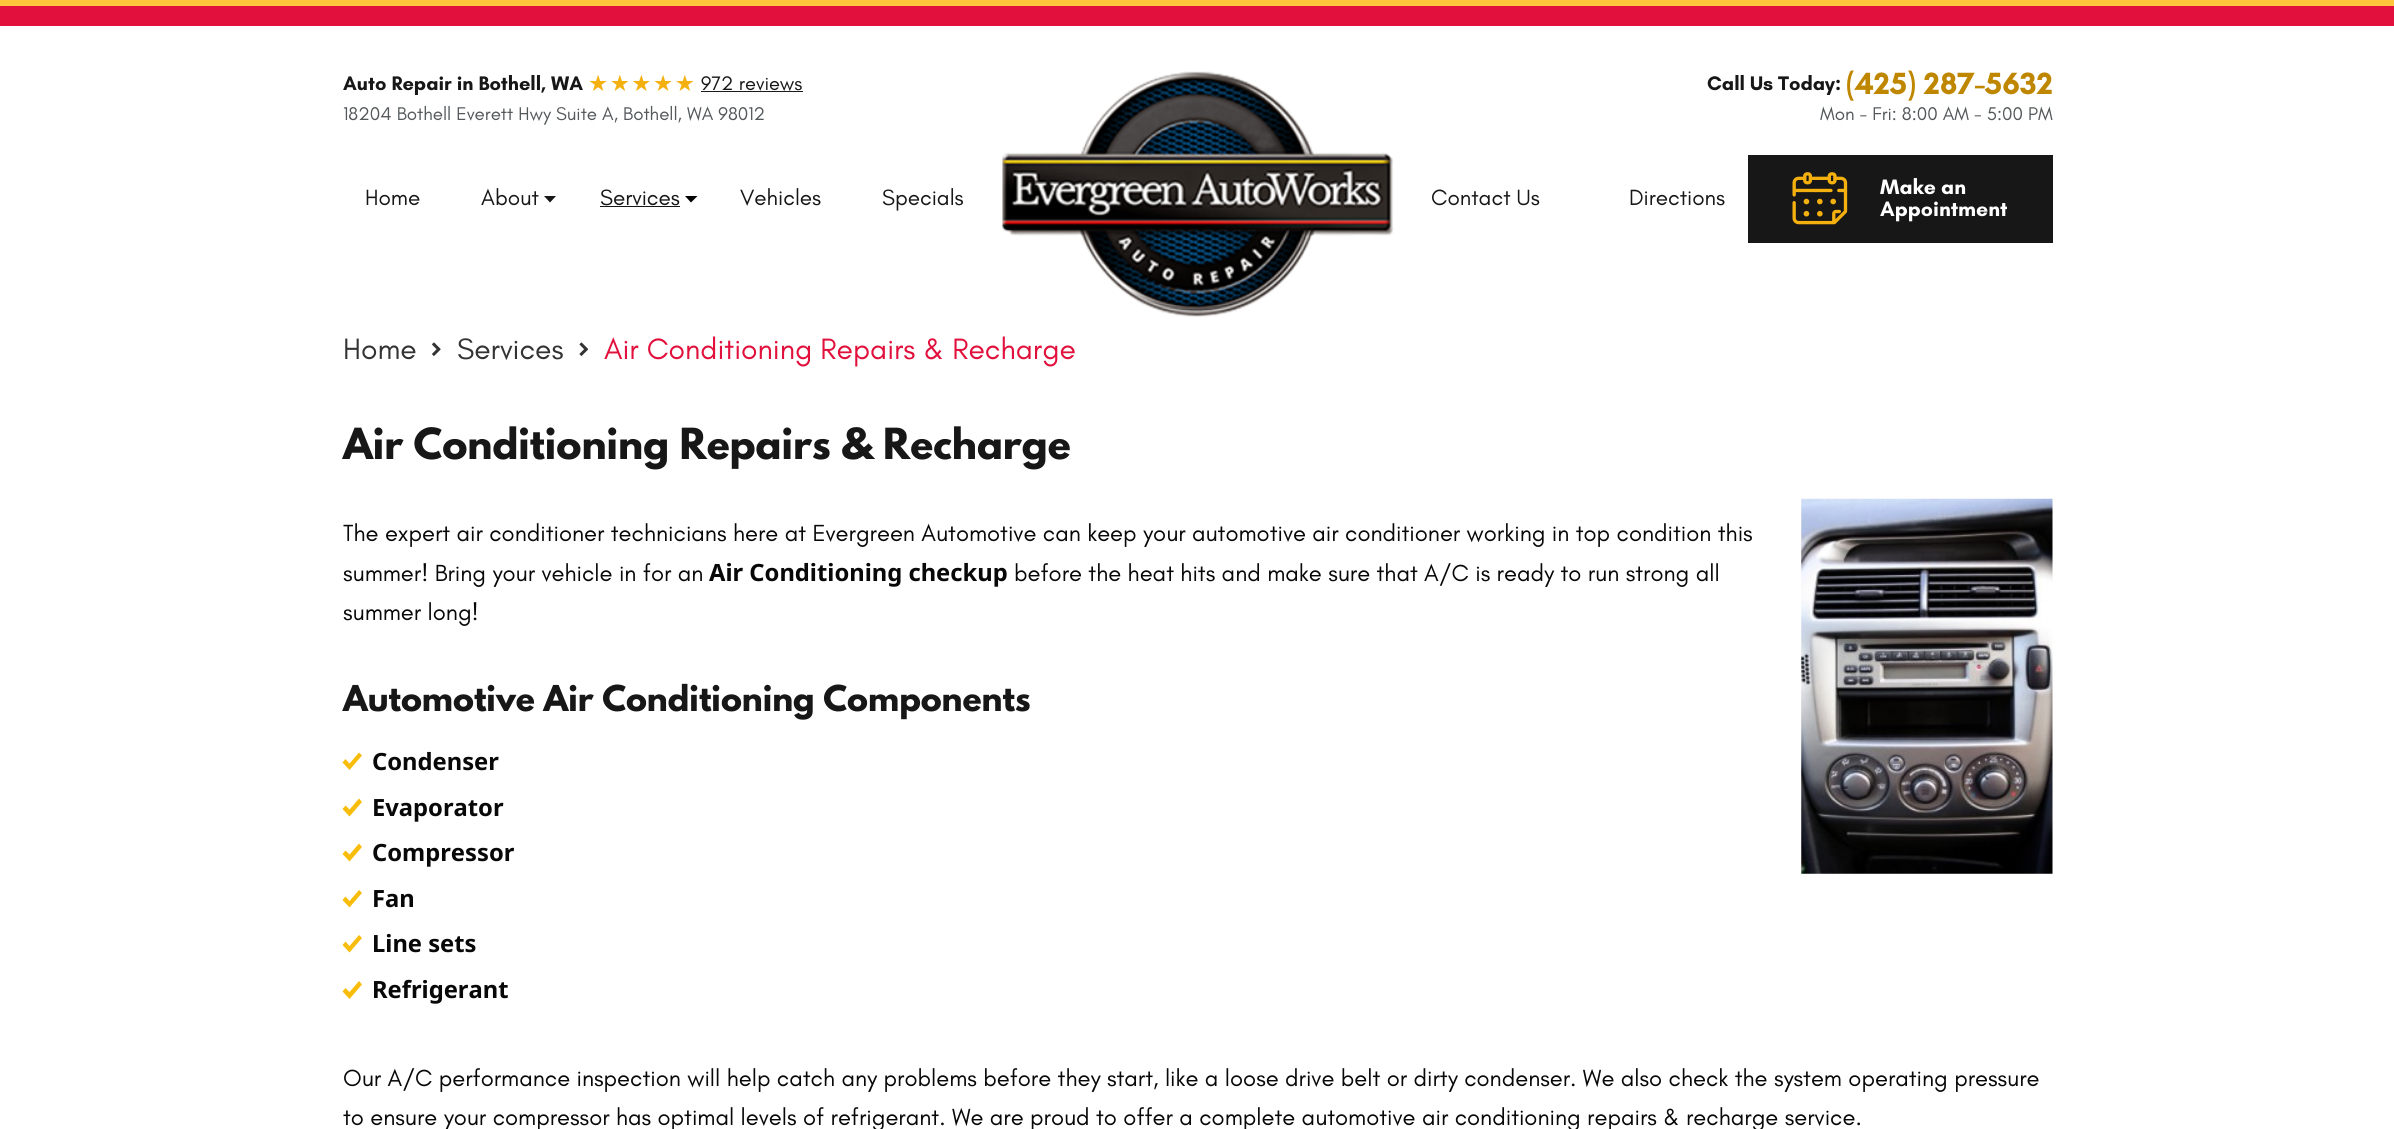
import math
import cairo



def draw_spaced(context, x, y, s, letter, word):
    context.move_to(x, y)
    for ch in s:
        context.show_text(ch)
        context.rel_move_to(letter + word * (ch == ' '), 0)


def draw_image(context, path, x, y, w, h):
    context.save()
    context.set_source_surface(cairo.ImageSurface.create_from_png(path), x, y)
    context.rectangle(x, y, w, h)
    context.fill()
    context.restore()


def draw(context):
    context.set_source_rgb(1, 1, 1)
    context.paint()
    context.set_source_rgb(1, 198 / 255, 61 / 255)
    context.rectangle(0, 0, 2394, 6)
    context.fill()
    context.set_source_rgb(225 / 255, 16 / 255, 60 / 255)
    context.rectangle(0, 6, 2394, 20)
    context.fill()
    context.set_source_rgb(27 / 255, 27 / 255, 27 / 255)
    context.rectangle(701, 91, 102, 1)
    context.fill()
    draw_image(context, "images/1.png", 1002, 71, 392, 246)
    context.set_source_rgb(23 / 255, 23 / 255, 23 / 255)
    context.new_path()
    context.move_to(544, 196)
    context.line_to(556, 196)
    context.line_to(550, 202.5)
    context.close_path()
    context.fill()
    context.rectangle(600, 206, 80, 1)
    context.fill()
    context.set_source_rgb(0, 0, 0)
    context.new_path()
    context.move_to(685, 196)
    context.line_to(697.5, 196)
    context.line_to(691, 202.5)
    context.close_path()
    context.fill()
    context.set_source_rgb(23 / 255, 23 / 255, 23 / 255)
    context.rectangle(1748, 155, 305, 88)
    context.fill()
    draw_image(context, "images/2.png", 1792, 172, 56, 53)
    draw_image(context, "images/3.png", 432, 342, 9, 14)
    draw_image(context, "images/4.png", 579, 342, 10, 14)
    draw_image(context, "images/5.png", 1801, 498, 252, 376)
    context.set_source_rgb(248 / 255, 189 / 255, 11 / 255)
    context.new_path()
    context.move_to(349.5, 770)
    context.line_to(342.5, 762.5)
    context.line_to(345.5, 759)
    context.line_to(349.5, 763.5)
    context.line_to(359, 752.5)
    context.line_to(362, 755.5)
    context.close_path()
    context.fill()
    context.new_path()
    context.move_to(349.5, 816.5)
    context.line_to(342.5, 809)
    context.line_to(345.5, 805.5)
    context.line_to(349.5, 809.5)
    context.line_to(359, 798.5)
    context.line_to(362, 802)
    context.close_path()
    context.fill()
    context.new_path()
    context.move_to(349.5, 861.5)
    context.line_to(342.5, 854)
    context.line_to(345.5, 850.5)
    context.line_to(349.5, 854.5)
    context.line_to(359, 843.5)
    context.line_to(362, 847)
    context.close_path()
    context.fill()
    context.new_path()
    context.move_to(349.5, 907.5)
    context.line_to(342.5, 900)
    context.line_to(345.5, 896.5)
    context.line_to(349.5, 901)
    context.line_to(359, 890)
    context.line_to(362, 893)
    context.close_path()
    context.fill()
    context.new_path()
    context.move_to(349.5, 952.5)
    context.line_to(342.5, 945)
    context.line_to(345.5, 941.5)
    context.line_to(349.5, 946)
    context.line_to(359, 935)
    context.line_to(362, 938)
    context.close_path()
    context.fill()
    context.new_path()
    context.move_to(349.5, 999)
    context.line_to(342.5, 991.5)
    context.line_to(345.5, 988)
    context.line_to(349.5, 992)
    context.line_to(359, 981)
    context.line_to(362, 984.5)
    context.close_path()
    context.fill()
    context.select_font_face("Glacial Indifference", cairo.FontSlant.NORMAL, cairo.FontWeight.BOLD)
    context.set_font_size(20)
    context.set_source_rgb(23 / 255, 23 / 255, 23 / 255)
    context.move_to(343, 90)
    context.show_text("Auto Repair in Bothell, WA")
    context.select_font_face("DejaVu Sans")
    context.set_font_size(22.5)
    context.set_source_rgb(243 / 255, 176 / 255, 15 / 255)
    draw_spaced(context, 588, 91, "★★★★★", 1.5, 0)
    context.select_font_face("Glacial Indifference")
    context.set_font_size(20)
    context.set_source_rgb(23 / 255, 23 / 255, 23 / 255)
    context.move_to(701, 90)
    context.show_text("972 reviews")
    context.set_font_size(18.75)
    context.set_source_rgb(83 / 255, 88 / 255, 91 / 255)
    context.move_to(343, 120)
    context.show_text("18204 Bothell Everett Hwy Suite A, Bothell, WA 98012")
    context.select_font_face("Glacial Indifference", cairo.FontSlant.NORMAL, cairo.FontWeight.BOLD)
    context.set_font_size(20)
    context.set_source_rgb(23 / 255, 23 / 255, 23 / 255)
    context.move_to(1707, 90)
    context.show_text("Call Us Today:")
    context.set_font_size(31.25)
    context.set_source_rgb(191 / 255, 134 / 255, 0)
    context.move_to(1846, 94)
    context.show_text("(425) 287-5632")
    context.select_font_face("Glacial Indifference")
    context.set_font_size(18.75)
    context.set_source_rgb(83 / 255, 88 / 255, 91 / 255)
    context.move_to(1820, 120)
    context.show_text("Mon - Fri: 8:00 AM - 5:00 PM")
    context.set_font_size(22.5)
    context.set_source_rgb(23 / 255, 23 / 255, 23 / 255)
    context.move_to(365, 205)
    context.show_text("Home")
    context.move_to(481, 205)
    context.show_text("About")
    context.move_to(600, 205)
    context.show_text("Services")
    context.move_to(740, 205)
    context.show_text("Vehicles")
    context.move_to(882, 205)
    context.show_text("Specials")
    context.move_to(1431, 205)
    context.show_text("Contact Us")
    context.move_to(1629, 205)
    context.show_text("Directions")
    context.select_font_face("Glacial Indifference", cairo.FontSlant.NORMAL, cairo.FontWeight.BOLD)
    context.set_font_size(21.25)
    context.set_source_rgb(1, 1, 1)
    context.move_to(1880, 194)
    context.show_text("Make an")
    context.move_to(1880, 216)
    context.show_text("Appointment")
    context.select_font_face("Glacial Indifference")
    context.set_font_size(30)
    context.set_source_rgb(51 / 255, 51 / 255, 51 / 255)
    context.move_to(343, 359)
    context.show_text("Home")
    context.move_to(457, 359)
    context.show_text("Services")
    context.set_source_rgb(225 / 255, 16 / 255, 60 / 255)
    context.move_to(604, 359)
    context.show_text("Air Conditioning Repairs & Recharge")
    context.select_font_face("League Spartan", cairo.FontSlant.NORMAL, cairo.FontWeight.BOLD)
    context.set_font_size(38)
    context.set_source_rgb(23 / 255, 23 / 255, 23 / 255)
    context.move_to(343, 459)
    context.show_text("Air Conditioning Repairs & Recharge")
    context.select_font_face("Glacial Indifference")
    context.set_font_size(23.75)
    context.set_source_rgb(8 / 255, 8 / 255, 8 / 255)
    context.move_to(343, 541)
    context.show_text("The expert air conditioner technicians here at Evergreen Automotive can keep your automotive air conditioner working in top condition this")
    context.move_to(343, 581)
    context.show_text("summer! Bring your vehicle in for an")
    context.select_font_face("Noto Sans", cairo.FontSlant.NORMAL, cairo.FontWeight.BOLD)
    context.move_to(709, 581)
    context.show_text("Air Conditioning checkup")
    context.select_font_face("Glacial Indifference")
    context.move_to(1014, 581)
    context.show_text("before the heat hits and make sure that A/C is ready to run strong all")
    context.move_to(343, 620)
    context.show_text("summer long!")
    context.select_font_face("League Spartan", cairo.FontSlant.NORMAL, cairo.FontWeight.BOLD)
    context.set_font_size(31.6)
    context.set_source_rgb(23 / 255, 23 / 255, 23 / 255)
    context.move_to(343, 711)
    context.show_text("Automotive Air Conditioning Components")
    context.select_font_face("Noto Sans", cairo.FontSlant.NORMAL, cairo.FontWeight.BOLD)
    context.set_font_size(23.75)
    context.set_source_rgb(8 / 255, 8 / 255, 8 / 255)
    context.move_to(372, 770)
    context.show_text("Condenser")
    context.move_to(372, 816)
    context.show_text("Evaporator")
    context.move_to(372, 861)
    context.show_text("Compressor")
    context.move_to(372, 907)
    context.show_text("Fan")
    context.move_to(372, 952)
    context.show_text("Line sets")
    context.move_to(372, 998)
    context.show_text("Refrigerant")
    context.select_font_face("Glacial Indifference")
    context.move_to(343, 1086)
    context.show_text("Our A/C performance inspection will help catch any problems before they start, like a loose drive belt or dirty condenser. We also check the system operating pressure")
    context.move_to(343, 1125)
    context.show_text("to ensure your compressor has optimal levels of refrigerant. We are proud to offer a complete automotive air conditioning repairs & recharge service.")


surface = cairo.ImageSurface(cairo.Format.RGB24, 2394, 1129)
context = cairo.Context(surface)
options = cairo.FontOptions()
options.set_hint_metrics(cairo.HintMetrics.OFF)
options.set_hint_style(cairo.HintStyle.NONE)
context.set_font_options(options)
context.set_miter_limit(4)
draw(context)
surface.write_to_png("out.png")
